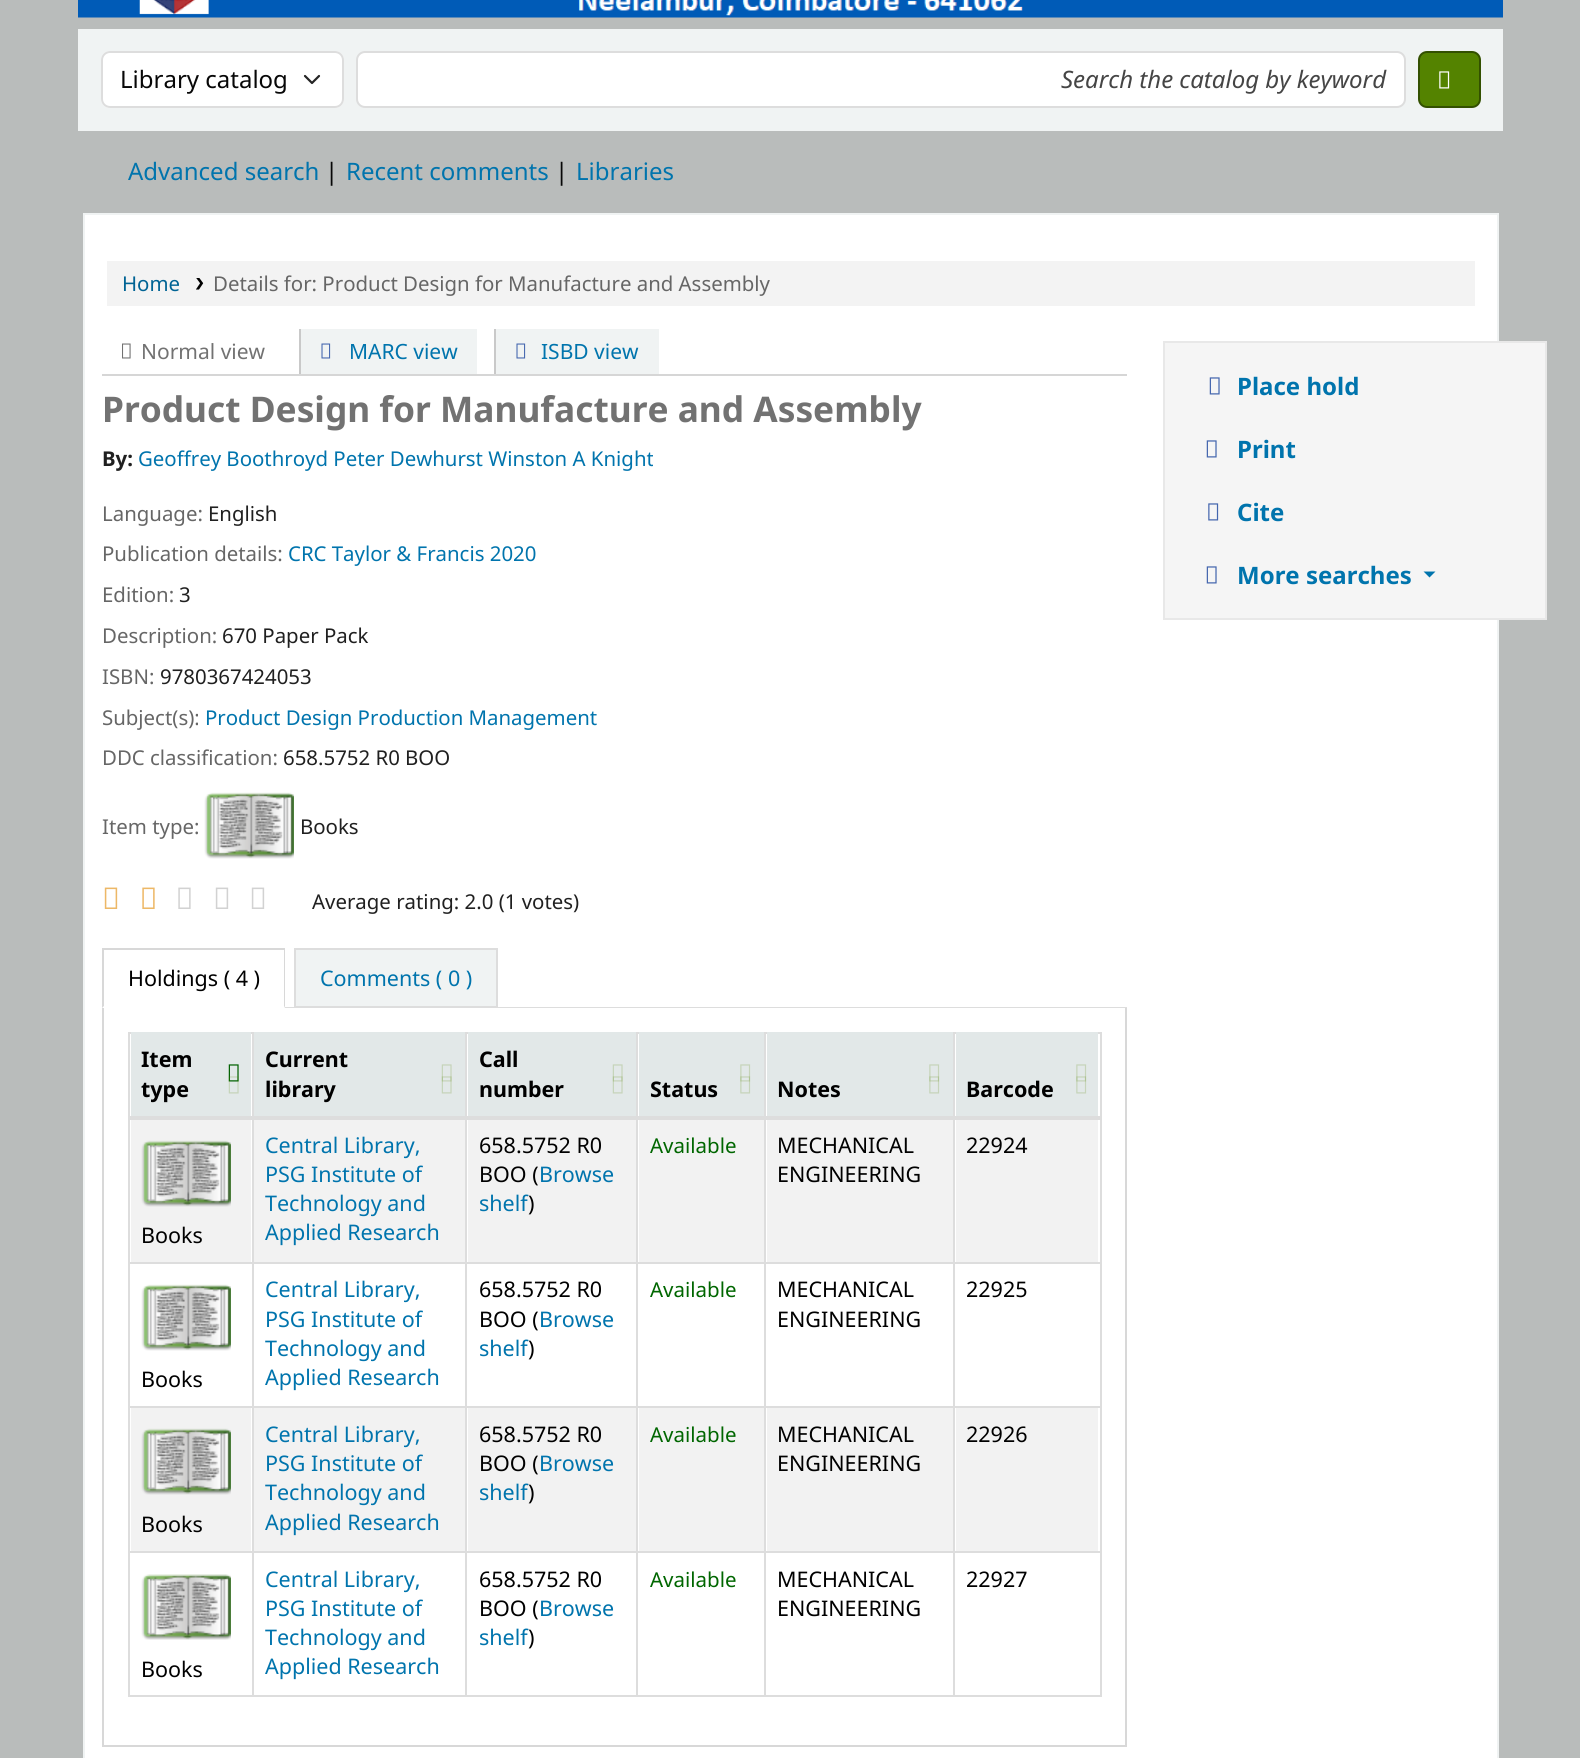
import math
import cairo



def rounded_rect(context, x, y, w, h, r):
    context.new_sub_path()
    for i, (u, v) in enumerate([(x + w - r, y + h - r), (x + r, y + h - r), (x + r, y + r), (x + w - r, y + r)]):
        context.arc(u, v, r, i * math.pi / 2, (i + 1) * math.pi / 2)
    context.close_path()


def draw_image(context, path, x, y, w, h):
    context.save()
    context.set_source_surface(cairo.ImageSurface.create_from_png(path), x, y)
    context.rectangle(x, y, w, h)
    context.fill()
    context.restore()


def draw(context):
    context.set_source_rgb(185 / 255, 188 / 255, 187 / 255)
    context.paint()
    draw_image(context, "images/1.png", 78, 0, 1425, 18)
    context.set_source_rgb(240 / 255, 243 / 255, 243 / 255)
    context.rectangle(78, 29, 1425, 102)
    context.fill()
    context.set_source_rgb(1, 1, 1)
    rounded_rect(context, 101, 51, 243, 57, 9)
    context.fill()
    context.new_path()
    context.move_to(305, 76)
    context.line_to(312, 83)
    context.line_to(319, 76)
    context.set_source_rgb(37 / 255, 37 / 255, 37 / 255)
    context.set_line_width(2.2)
    context.set_line_cap(cairo.LineCap.ROUND)
    context.set_line_join(cairo.LineJoin.ROUND)
    context.stroke()
    rounded_rect(context, 102, 52, 241, 55, 8)
    context.set_source_rgb(221 / 255, 221 / 255, 221 / 255)
    context.set_line_width(2)
    context.set_line_cap(cairo.LineCap.BUTT)
    context.set_line_join(cairo.LineJoin.MITER)
    context.stroke()
    context.set_source_rgb(1, 1, 1)
    rounded_rect(context, 357, 52, 1048, 55, 8)
    context.fill_preserve()
    context.set_source_rgb(221 / 255, 221 / 255, 221 / 255)
    context.stroke()
    context.set_source_rgb(84 / 255, 131 / 255, 0)
    rounded_rect(context, 1419, 52, 61, 55, 8)
    context.fill_preserve()
    context.set_source_rgb(51 / 255, 80 / 255, 0)
    context.stroke()
    draw_image(context, "images/2.png", 1439, 71, 11, 18)
    context.set_source_rgb(1, 1, 1)
    context.rectangle(84, 214, 1414, 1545)
    context.fill_preserve()
    context.set_source_rgb(240 / 255, 243 / 255, 243 / 255)
    context.stroke()
    context.set_source_rgb(243 / 255, 243 / 255, 243 / 255)
    context.rectangle(107, 261, 1368, 45)
    context.fill()
    draw_image(context, "images/3.png", 196, 278, 8, 12)
    context.set_source_rgb(214 / 255, 214 / 255, 214 / 255)
    context.rectangle(102, 374, 1025, 2)
    context.fill()
    draw_image(context, "images/4.png", 122, 343, 9, 16)
    context.set_source_rgb(240 / 255, 243 / 255, 243 / 255)
    context.rectangle(301, 329, 176, 45)
    context.fill()
    context.set_source_rgb(201 / 255, 201 / 255, 201 / 255)
    context.rectangle(299, 329, 2, 45)
    context.fill()
    draw_image(context, "images/5.png", 321, 343, 10, 16)
    context.set_source_rgb(240 / 255, 243 / 255, 243 / 255)
    context.rectangle(496, 329, 163, 45)
    context.fill()
    context.set_source_rgb(201 / 255, 201 / 255, 201 / 255)
    context.rectangle(494, 329, 2, 45)
    context.fill()
    draw_image(context, "images/5.png", 516, 343, 10, 16)
    draw_image(context, "images/6.png", 204, 792, 90, 67)
    draw_image(context, "images/7.png", 104, 887, 14, 22)
    draw_image(context, "images/8.png", 142, 887, 13, 22)
    draw_image(context, "images/9.png", 178, 887, 13, 22)
    draw_image(context, "images/10.png", 215, 887, 14, 22)
    draw_image(context, "images/10.png", 251, 887, 14, 22)
    context.set_source_rgb(221 / 255, 221 / 255, 221 / 255)
    context.rectangle(285, 1007, 842, 1)
    context.fill()
    context.set_source_rgb(216 / 255, 216 / 255, 216 / 255)
    context.rectangle(102, 948, 183, 2)
    context.fill()
    context.new_path()
    context.move_to(285, 948)
    context.line_to(285, 1008)
    context.line_to(284, 1006)
    context.line_to(284, 950)
    context.close_path()
    context.fill()
    context.new_path()
    context.move_to(102, 1008)
    context.line_to(102, 948)
    context.line_to(104, 950)
    context.line_to(104, 1006)
    context.close_path()
    context.fill()
    context.set_source_rgb(240 / 255, 243 / 255, 243 / 255)
    context.rectangle(295, 949, 202, 58)
    context.fill_preserve()
    context.set_source_rgb(221 / 255, 221 / 255, 221 / 255)
    context.stroke()
    context.set_source_rgb(216 / 255, 216 / 255, 216 / 255)
    context.rectangle(1125, 1008, 2, 738)
    context.fill()
    context.rectangle(102, 1745, 1025, 2)
    context.fill()
    context.rectangle(102, 1008, 2, 738)
    context.fill()
    context.set_source_rgb(221 / 255, 221 / 255, 221 / 255)
    context.rectangle(128, 1032, 973, 2)
    context.fill()
    context.set_source_rgb(226 / 255, 232 / 255, 232 / 255)
    context.rectangle(131, 1032, 120, 84)
    context.fill()
    draw_image(context, "images/11.png", 228, 1064, 11, 18)
    draw_image(context, "images/12.png", 228, 1076, 11, 18)
    context.rectangle(254, 1032, 211, 84)
    context.fill()
    draw_image(context, "images/13.png", 441, 1064, 11, 18)
    draw_image(context, "images/14.png", 441, 1076, 11, 18)
    context.rectangle(468, 1032, 168, 84)
    context.fill()
    draw_image(context, "images/13.png", 612, 1064, 11, 18)
    draw_image(context, "images/14.png", 612, 1076, 11, 18)
    context.rectangle(639, 1032, 125, 84)
    context.fill()
    draw_image(context, "images/15.png", 740, 1064, 11, 18)
    draw_image(context, "images/16.png", 740, 1076, 11, 18)
    context.rectangle(767, 1032, 186, 84)
    context.fill()
    draw_image(context, "images/15.png", 929, 1064, 11, 18)
    draw_image(context, "images/16.png", 929, 1076, 11, 18)
    context.rectangle(956, 1032, 142, 84)
    context.fill()
    draw_image(context, "images/15.png", 1076, 1064, 11, 18)
    draw_image(context, "images/16.png", 1076, 1076, 11, 18)
    context.set_source_rgb(221 / 255, 221 / 255, 221 / 255)
    context.rectangle(128, 1116, 973, 4)
    context.fill()
    context.set_source_rgb(242 / 255, 242 / 255, 242 / 255)
    context.rectangle(254, 1120, 211, 142)
    context.fill()
    context.rectangle(468, 1120, 168, 142)
    context.fill()
    context.rectangle(639, 1120, 125, 142)
    context.fill()
    context.rectangle(767, 1120, 186, 142)
    context.fill()
    context.rectangle(956, 1120, 142, 142)
    context.fill()
    context.rectangle(131, 1120, 120, 142)
    context.fill()
    draw_image(context, "images/17.png", 141, 1140, 90, 67)
    context.set_source_rgb(221 / 255, 221 / 255, 221 / 255)
    context.rectangle(128, 1262, 973, 2)
    context.fill()
    draw_image(context, "images/6.png", 141, 1284, 90, 67)
    context.rectangle(128, 1406, 973, 2)
    context.fill()
    context.set_source_rgb(242 / 255, 242 / 255, 242 / 255)
    context.rectangle(254, 1408, 211, 143)
    context.fill()
    context.rectangle(468, 1408, 168, 143)
    context.fill()
    context.rectangle(639, 1408, 125, 143)
    context.fill()
    context.rectangle(767, 1408, 186, 143)
    context.fill()
    context.rectangle(956, 1408, 142, 143)
    context.fill()
    context.rectangle(131, 1408, 120, 143)
    context.fill()
    draw_image(context, "images/17.png", 141, 1428, 90, 67)
    context.set_source_rgb(221 / 255, 221 / 255, 221 / 255)
    context.rectangle(128, 1551, 973, 2)
    context.fill()
    context.rectangle(128, 1695, 973, 2)
    context.fill()
    context.rectangle(252, 1032, 2, 665)
    context.fill()
    context.rectangle(465, 1032, 2, 665)
    context.fill()
    context.rectangle(636, 1032, 2, 665)
    context.fill()
    context.rectangle(764, 1032, 2, 665)
    context.fill()
    context.rectangle(1100, 1032, 2, 665)
    context.fill()
    context.rectangle(953, 1032, 2, 665)
    context.fill()
    context.rectangle(128, 1032, 2, 665)
    context.fill()
    draw_image(context, "images/18.png", 141, 1574, 90, 66)
    context.set_source_rgb(245 / 255, 245 / 255, 245 / 255)
    context.rectangle(1164, 342, 382, 277)
    context.fill_preserve()
    context.set_source_rgb(232 / 255, 232 / 255, 232 / 255)
    context.stroke()
    draw_image(context, "images/19.png", 1209, 377, 11, 18)
    draw_image(context, "images/19.png", 1206, 440, 11, 18)
    draw_image(context, "images/20.png", 1208, 503, 11, 18)
    draw_image(context, "images/19.png", 1206, 566, 11, 18)
    context.set_source_rgb(0, 116 / 255, 173 / 255)
    context.new_path()
    context.move_to(1423.5, 571.5)
    context.line_to(1435.5, 571.5)
    context.line_to(1429.5, 577.5)
    context.close_path()
    context.fill()
    context.select_font_face("Noto Sans")
    context.set_font_size(24)
    context.set_source_rgb(7 / 255, 7 / 255, 7 / 255)
    context.move_to(120, 88)
    context.show_text("Library catalog")
    context.select_font_face("Noto Sans", cairo.FontSlant.ITALIC)
    context.set_source_rgb(69 / 255, 69 / 255, 69 / 255)
    context.move_to(1061, 88)
    context.show_text("Search the catalog by keyword")
    context.select_font_face("Noto Sans")
    context.set_source_rgb(0, 116 / 255, 173 / 255)
    context.move_to(128, 180)
    context.show_text("Advanced search")
    context.set_source_rgb(7 / 255, 7 / 255, 7 / 255)
    context.move_to(325, 180)
    context.show_text("|")
    context.set_source_rgb(0, 116 / 255, 173 / 255)
    context.move_to(346, 180)
    context.show_text("Recent comments")
    context.set_source_rgb(7 / 255, 7 / 255, 7 / 255)
    context.move_to(555, 180)
    context.show_text("|")
    context.set_source_rgb(0, 116 / 255, 173 / 255)
    context.move_to(576, 180)
    context.show_text("Libraries")
    context.set_font_size(20.4)
    context.set_source_rgb(0, 99 / 255, 148 / 255)
    context.move_to(122, 291)
    context.show_text("Home")
    context.set_source_rgb(102 / 255, 102 / 255, 102 / 255)
    context.move_to(213, 291)
    context.show_text("Details for: Product Design for Manufacture and Assembly")
    context.set_font_size(21)
    context.set_source_rgb(114 / 255, 114 / 255, 114 / 255)
    context.move_to(141, 359)
    context.show_text("Normal view")
    context.set_source_rgb(0, 116 / 255, 173 / 255)
    context.move_to(349, 359)
    context.show_text("MARC view")
    context.move_to(541, 359)
    context.show_text("ISBD view")
    context.select_font_face("Noto Sans", cairo.FontSlant.NORMAL, cairo.FontWeight.BOLD)
    context.set_font_size(35.3)
    context.set_source_rgb(114 / 255, 114 / 255, 114 / 255)
    context.move_to(102, 422)
    context.show_text("Product Design for Manufacture and Assembly")
    context.set_font_size(20.4)
    context.set_source_rgb(32 / 255, 32 / 255, 32 / 255)
    context.move_to(102, 466)
    context.show_text("By:")
    context.select_font_face("Noto Sans")
    context.set_source_rgb(0, 116 / 255, 173 / 255)
    context.move_to(138, 466)
    context.show_text("Geoffrey Boothroyd Peter Dewhurst Winston A Knight")
    context.set_source_rgb(102 / 255, 102 / 255, 102 / 255)
    context.move_to(102, 521)
    context.show_text("Language:")
    context.set_source_rgb(32 / 255, 32 / 255, 32 / 255)
    context.move_to(208, 521)
    context.show_text("English")
    context.set_source_rgb(102 / 255, 102 / 255, 102 / 255)
    context.move_to(102, 561)
    context.show_text("Publication details:")
    context.set_source_rgb(0, 116 / 255, 173 / 255)
    context.move_to(288, 561)
    context.show_text("CRC Taylor & Francis 2020")
    context.set_source_rgb(102 / 255, 102 / 255, 102 / 255)
    context.move_to(102, 602)
    context.show_text("Edition:")
    context.set_source_rgb(32 / 255, 32 / 255, 32 / 255)
    context.move_to(179, 602)
    context.show_text("3")
    context.set_source_rgb(102 / 255, 102 / 255, 102 / 255)
    context.move_to(102, 643)
    context.show_text("Description:")
    context.set_source_rgb(32 / 255, 32 / 255, 32 / 255)
    context.move_to(222, 643)
    context.show_text("670 Paper Pack")
    context.set_source_rgb(102 / 255, 102 / 255, 102 / 255)
    context.move_to(102, 684)
    context.show_text("ISBN:")
    context.set_source_rgb(32 / 255, 32 / 255, 32 / 255)
    context.move_to(160, 684)
    context.show_text("9780367424053")
    context.set_source_rgb(102 / 255, 102 / 255, 102 / 255)
    context.move_to(102, 725)
    context.show_text("Subject(s):")
    context.set_source_rgb(0, 116 / 255, 173 / 255)
    context.move_to(205, 725)
    context.show_text("Product Design Production Management")
    context.set_source_rgb(102 / 255, 102 / 255, 102 / 255)
    context.move_to(102, 765)
    context.show_text("DDC classification:")
    context.set_source_rgb(32 / 255, 32 / 255, 32 / 255)
    context.move_to(283, 765)
    context.show_text("658.5752 R0 BOO")
    context.set_source_rgb(102 / 255, 102 / 255, 102 / 255)
    context.move_to(102, 834)
    context.show_text("Item type:")
    context.set_source_rgb(32 / 255, 32 / 255, 32 / 255)
    context.move_to(300, 834)
    context.show_text("Books")
    context.move_to(312, 909)
    context.show_text("Average rating: 2.0 (1 votes)")
    context.set_font_size(21.5)
    context.set_source_rgb(0, 0, 0)
    context.move_to(128, 986)
    context.show_text("Holdings ( 4 )")
    context.set_source_rgb(0, 116 / 255, 173 / 255)
    context.move_to(320, 986)
    context.show_text("Comments ( 0 )")
    context.select_font_face("Noto Sans", cairo.FontSlant.NORMAL, cairo.FontWeight.BOLD)
    context.set_source_rgb(0, 0, 0)
    context.move_to(141, 1067)
    context.show_text("Item")
    context.move_to(141, 1097)
    context.show_text("type")
    context.move_to(265, 1067)
    context.show_text("Current")
    context.move_to(265, 1097)
    context.show_text("library")
    context.move_to(479, 1067)
    context.show_text("Call")
    context.move_to(479, 1097)
    context.show_text("number")
    context.move_to(650, 1097)
    context.show_text("Status")
    context.move_to(777, 1097)
    context.show_text("Notes")
    context.move_to(966, 1097)
    context.show_text("Barcode")
    context.select_font_face("Noto Sans")
    context.set_source_rgb(0, 116 / 255, 173 / 255)
    context.move_to(265, 1153)
    context.show_text("Central Library,")
    context.move_to(265, 1182)
    context.show_text("PSG Institute of")
    context.move_to(265, 1211)
    context.show_text("Technology and")
    context.move_to(265, 1240)
    context.show_text("Applied Research")
    context.set_source_rgb(0, 0, 0)
    context.move_to(479, 1153)
    context.show_text("658.5752 R0")
    context.move_to(479, 1182)
    context.show_text("BOO (")
    context.set_source_rgb(0, 116 / 255, 173 / 255)
    context.move_to(539, 1182)
    context.show_text("Browse")
    context.move_to(479, 1211)
    context.show_text("shelf")
    context.set_source_rgb(0, 0, 0)
    context.move_to(528, 1211)
    context.show_text(")")
    context.set_font_size(20.5)
    context.set_source_rgb(0, 102 / 255, 0)
    context.move_to(650, 1153)
    context.show_text("Available")
    context.set_font_size(21.5)
    context.set_source_rgb(0, 0, 0)
    context.move_to(777, 1153)
    context.show_text("MECHANICAL")
    context.move_to(777, 1182)
    context.show_text("ENGINEERING")
    context.move_to(966, 1153)
    context.show_text("22924")
    context.move_to(141, 1243)
    context.show_text("Books")
    context.set_source_rgb(0, 116 / 255, 173 / 255)
    context.move_to(265, 1297)
    context.show_text("Central Library,")
    context.move_to(265, 1327)
    context.show_text("PSG Institute of")
    context.move_to(265, 1356)
    context.show_text("Technology and")
    context.move_to(265, 1385)
    context.show_text("Applied Research")
    context.set_source_rgb(0, 0, 0)
    context.move_to(479, 1297)
    context.show_text("658.5752 R0")
    context.move_to(479, 1327)
    context.show_text("BOO (")
    context.set_source_rgb(0, 116 / 255, 173 / 255)
    context.move_to(539, 1327)
    context.show_text("Browse")
    context.move_to(479, 1356)
    context.show_text("shelf")
    context.set_source_rgb(0, 0, 0)
    context.move_to(528, 1356)
    context.show_text(")")
    context.set_font_size(20.5)
    context.set_source_rgb(0, 102 / 255, 0)
    context.move_to(650, 1297)
    context.show_text("Available")
    context.set_font_size(21.5)
    context.set_source_rgb(0, 0, 0)
    context.move_to(777, 1297)
    context.show_text("MECHANICAL")
    context.move_to(777, 1327)
    context.show_text("ENGINEERING")
    context.move_to(966, 1297)
    context.show_text("22925")
    context.move_to(141, 1387)
    context.show_text("Books")
    context.set_source_rgb(0, 116 / 255, 173 / 255)
    context.move_to(265, 1442)
    context.show_text("Central Library,")
    context.move_to(265, 1471)
    context.show_text("PSG Institute of")
    context.move_to(265, 1500)
    context.show_text("Technology and")
    context.move_to(265, 1530)
    context.show_text("Applied Research")
    context.set_source_rgb(0, 0, 0)
    context.move_to(479, 1442)
    context.show_text("658.5752 R0")
    context.move_to(479, 1471)
    context.show_text("BOO (")
    context.set_source_rgb(0, 116 / 255, 173 / 255)
    context.move_to(539, 1471)
    context.show_text("Browse")
    context.move_to(479, 1500)
    context.show_text("shelf")
    context.set_source_rgb(0, 0, 0)
    context.move_to(528, 1500)
    context.show_text(")")
    context.set_font_size(20.5)
    context.set_source_rgb(0, 102 / 255, 0)
    context.move_to(650, 1442)
    context.show_text("Available")
    context.set_font_size(21.5)
    context.set_source_rgb(0, 0, 0)
    context.move_to(777, 1442)
    context.show_text("MECHANICAL")
    context.move_to(777, 1471)
    context.show_text("ENGINEERING")
    context.move_to(966, 1442)
    context.show_text("22926")
    context.move_to(141, 1532)
    context.show_text("Books")
    context.set_source_rgb(0, 116 / 255, 173 / 255)
    context.move_to(265, 1587)
    context.show_text("Central Library,")
    context.move_to(265, 1616)
    context.show_text("PSG Institute of")
    context.move_to(265, 1645)
    context.show_text("Technology and")
    context.move_to(265, 1674)
    context.show_text("Applied Research")
    context.set_source_rgb(0, 0, 0)
    context.move_to(479, 1587)
    context.show_text("658.5752 R0")
    context.move_to(479, 1616)
    context.show_text("BOO (")
    context.set_source_rgb(0, 116 / 255, 173 / 255)
    context.move_to(539, 1616)
    context.show_text("Browse")
    context.move_to(479, 1645)
    context.show_text("shelf")
    context.set_source_rgb(0, 0, 0)
    context.move_to(528, 1645)
    context.show_text(")")
    context.set_font_size(20.5)
    context.set_source_rgb(0, 102 / 255, 0)
    context.move_to(650, 1587)
    context.show_text("Available")
    context.set_font_size(21.5)
    context.set_source_rgb(0, 0, 0)
    context.move_to(777, 1587)
    context.show_text("MECHANICAL")
    context.move_to(777, 1616)
    context.show_text("ENGINEERING")
    context.move_to(966, 1587)
    context.show_text("22927")
    context.move_to(141, 1677)
    context.show_text("Books")
    context.select_font_face("Noto Sans", cairo.FontSlant.NORMAL, cairo.FontWeight.BOLD)
    context.set_font_size(24)
    context.set_source_rgb(0, 116 / 255, 173 / 255)
    context.move_to(1237, 395)
    context.show_text("Place hold")
    context.move_to(1237, 458)
    context.show_text("Print")
    context.move_to(1237, 521)
    context.show_text("Cite")
    context.move_to(1237, 584)
    context.show_text("More searches")


surface = cairo.ImageSurface(cairo.Format.RGB24, 1580, 1758)
context = cairo.Context(surface)
options = cairo.FontOptions()
options.set_hint_metrics(cairo.HintMetrics.OFF)
options.set_hint_style(cairo.HintStyle.NONE)
context.set_font_options(options)
context.set_miter_limit(4)
draw(context)
surface.write_to_png("out.png")
